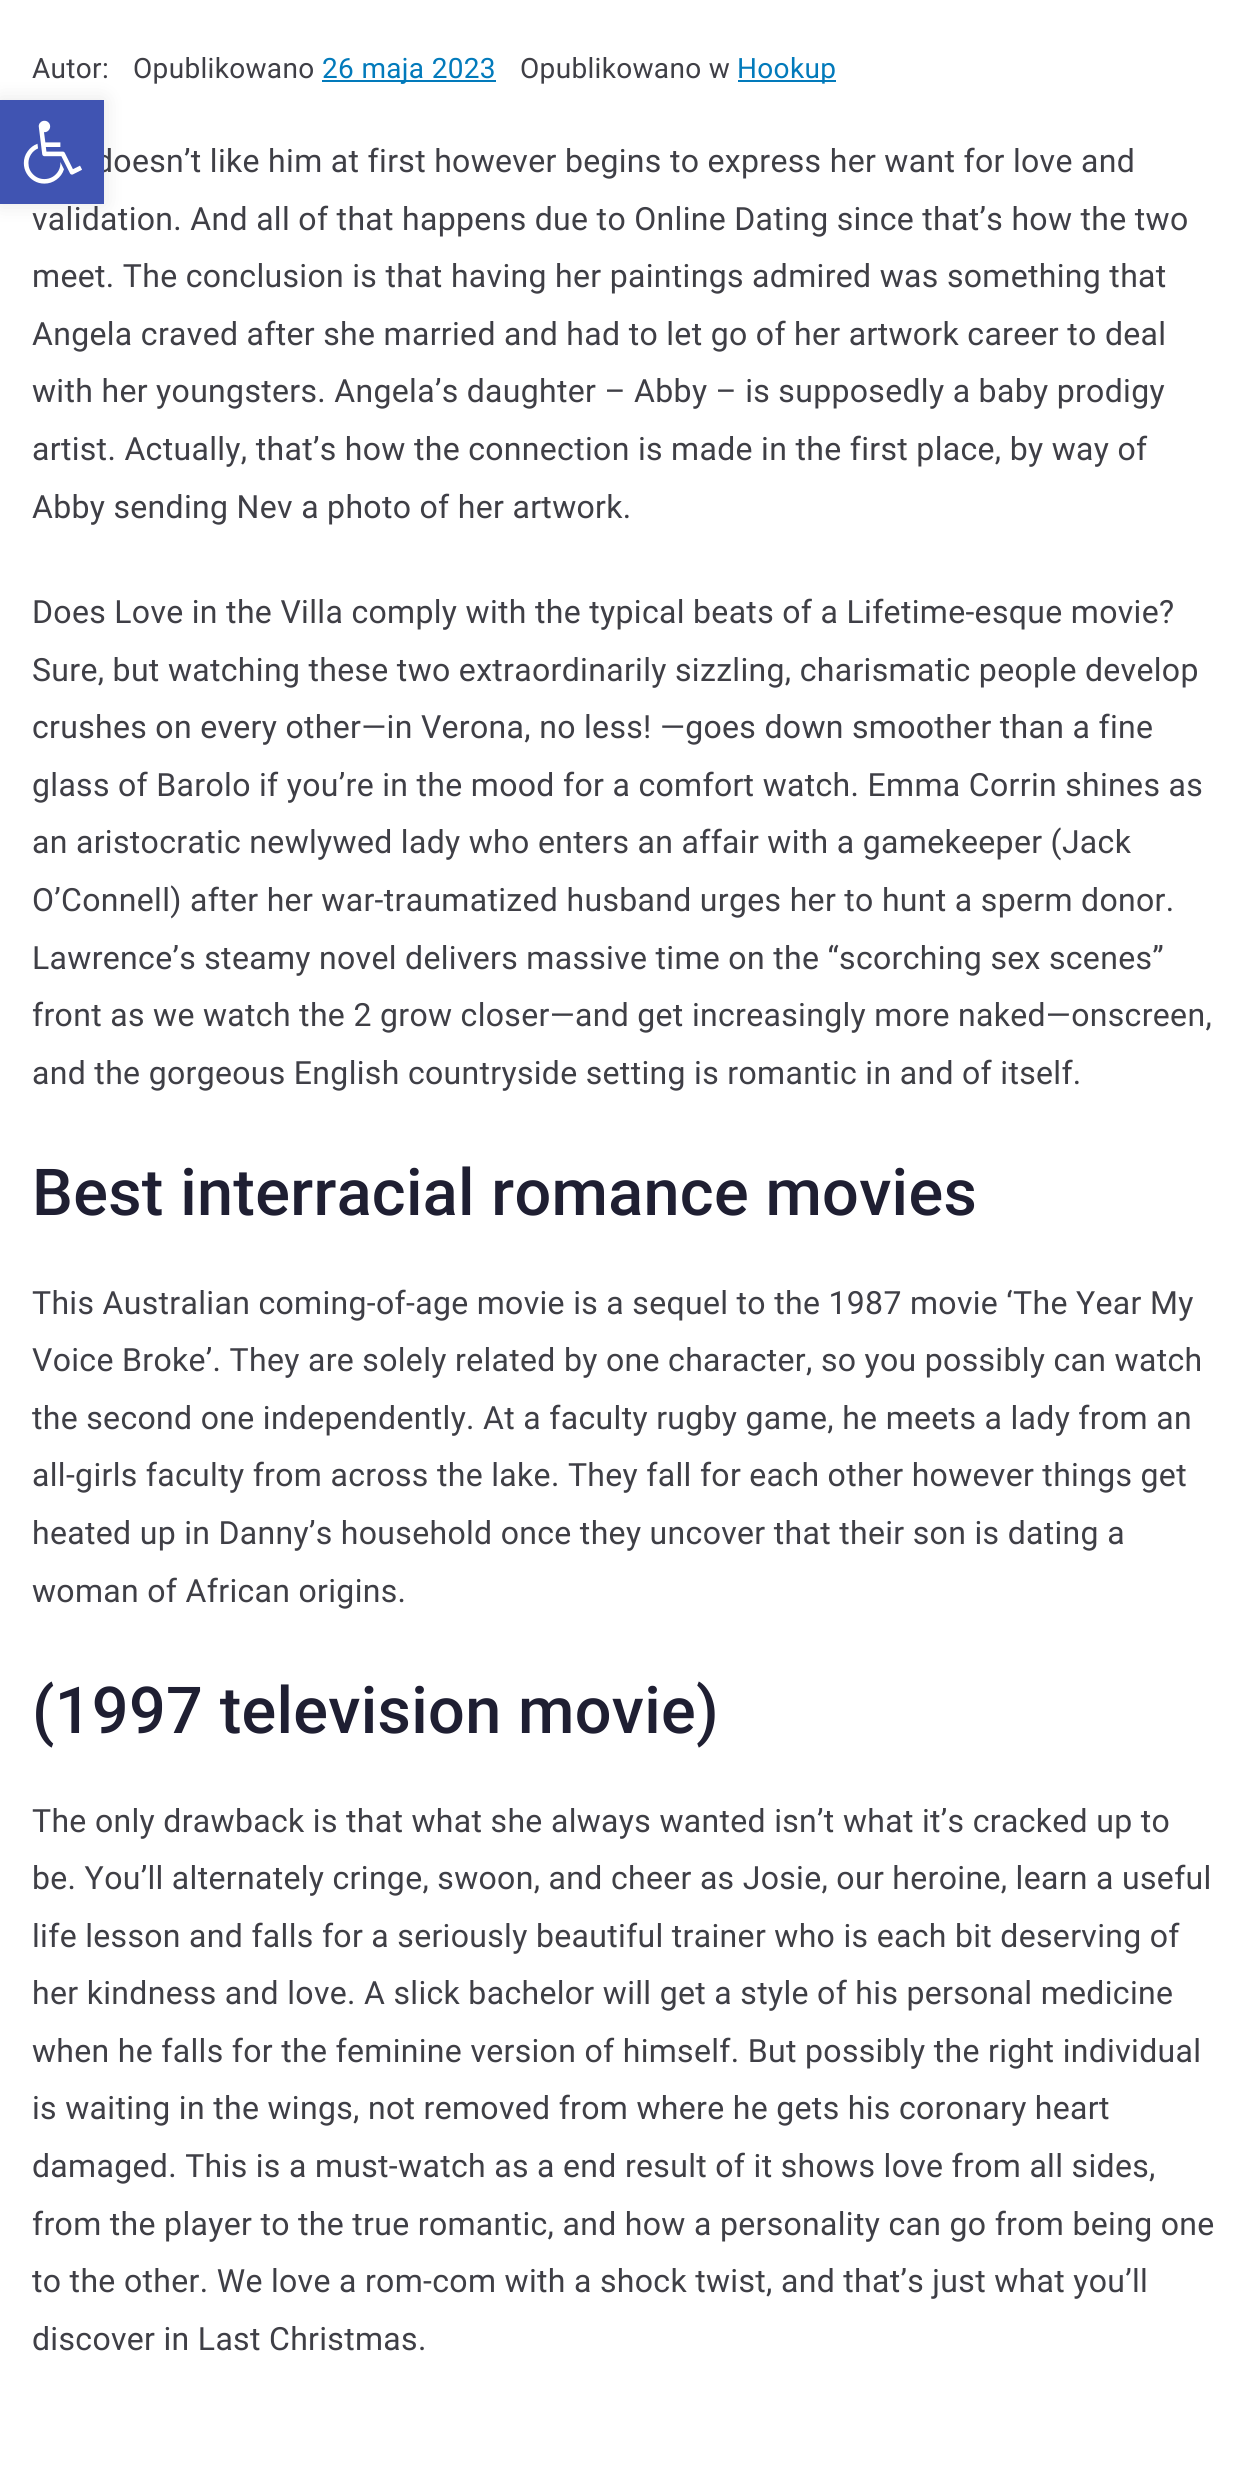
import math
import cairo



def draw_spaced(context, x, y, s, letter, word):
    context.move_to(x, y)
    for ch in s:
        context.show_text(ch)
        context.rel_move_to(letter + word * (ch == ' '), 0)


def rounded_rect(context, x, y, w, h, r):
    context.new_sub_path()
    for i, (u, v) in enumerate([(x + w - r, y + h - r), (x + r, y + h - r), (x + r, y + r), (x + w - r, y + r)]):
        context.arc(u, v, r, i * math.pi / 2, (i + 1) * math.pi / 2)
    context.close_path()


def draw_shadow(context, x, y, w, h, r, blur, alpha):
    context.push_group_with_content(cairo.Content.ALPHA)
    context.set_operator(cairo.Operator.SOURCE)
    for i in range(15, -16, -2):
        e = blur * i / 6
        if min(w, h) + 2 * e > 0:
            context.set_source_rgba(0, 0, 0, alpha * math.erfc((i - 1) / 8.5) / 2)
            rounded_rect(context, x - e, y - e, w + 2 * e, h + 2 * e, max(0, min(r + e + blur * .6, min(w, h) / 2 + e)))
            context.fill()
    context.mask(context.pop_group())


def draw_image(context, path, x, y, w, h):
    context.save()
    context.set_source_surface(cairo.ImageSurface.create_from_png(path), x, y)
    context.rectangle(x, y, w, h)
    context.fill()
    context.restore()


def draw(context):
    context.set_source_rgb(1, 1, 1)
    context.paint()
    context.set_source_rgb(2 / 255, 122 / 255, 187 / 255)
    context.rectangle(322, 80, 174, 2)
    context.fill()
    context.rectangle(738, 80, 98, 2)
    context.fill()
    context.set_source_rgb(0, 0, 0)
    draw_shadow(context, 0, 100, 104, 104, 0, 10, 0.1)
    context.select_font_face("Roboto")
    context.set_font_size(28)
    context.set_source_rgb(63 / 255, 63 / 255, 70 / 255)
    draw_spaced(context, 32, 78, "Autor:", 0.32, 0)
    draw_spaced(context, 133, 78, "Opublikowano", 0.32, 0)
    context.set_source_rgb(2 / 255, 122 / 255, 187 / 255)
    draw_spaced(context, 322, 78, "26 maja 2023", 0.32, 0)
    context.set_source_rgb(63 / 255, 63 / 255, 70 / 255)
    draw_spaced(context, 520, 78, "Opublikowano w", 0.32, 0)
    context.set_source_rgb(2 / 255, 122 / 255, 187 / 255)
    draw_spaced(context, 737, 78, "Hookup", 0.32, 0)
    context.set_font_size(32)
    context.set_source_rgb(63 / 255, 63 / 255, 70 / 255)
    draw_spaced(context, 95, 172, "doesn’t like him at first however begins to express her want for love and", 0.32, 0)
    draw_spaced(context, 32, 230, "validation. And all of that happens due to Online Dating since that’s how the two", 0.32, 0)
    draw_spaced(context, 32, 287, "meet. The conclusion is that having her paintings admired was something that", 0.32, 0)
    draw_spaced(context, 32, 345, "Angela craved after she married and had to let go of her artwork career to deal", 0.32, 0)
    draw_spaced(context, 32, 402, "with her youngsters. Angela’s daughter – Abby – is supposedly a baby prodigy", 0.32, 0)
    draw_spaced(context, 32, 460, "artist. Actually, that’s how the connection is made in the first place, by way of", 0.32, 0)
    draw_spaced(context, 32, 518, "Abby sending Nev a photo of her artwork.", 0.32, 0)
    draw_spaced(context, 32, 623, "Does Love in the Villa comply with the typical beats of a Lifetime-esque movie?", 0.32, 0)
    draw_spaced(context, 32, 681, "Sure, but watching these two extraordinarily sizzling, charismatic people develop", 0.32, 0)
    draw_spaced(context, 32, 738, "crushes on every other—in Verona, no less! —goes down smoother than a fine", 0.32, 0)
    draw_spaced(context, 32, 796, "glass of Barolo if you’re in the mood for a comfort watch. Emma Corrin shines as", 0.32, 0)
    draw_spaced(context, 32, 853, "an aristocratic newlywed lady who enters an affair with a gamekeeper (Jack", 0.32, 0)
    draw_spaced(context, 32, 911, "O’Connell) after her war-traumatized husband urges her to hunt a sperm donor.", 0.32, 0)
    draw_spaced(context, 32, 969, "Lawrence’s steamy novel delivers massive time on the “scorching sex scenes”", 0.32, 0)
    draw_spaced(context, 32, 1026, "front as we watch the 2 grow closer—and get increasingly more naked—onscreen,", 0.32, 0)
    draw_spaced(context, 32, 1084, "and the gorgeous English countryside setting is romantic in and of itself.", 0.32, 0)
    context.select_font_face("Roboto Medium")
    context.set_font_size(64.75)
    context.set_source_rgb(31 / 255, 31 / 255, 50 / 255)
    draw_spaced(context, 32, 1215, "Best interracial romance movies", 0.32, 0)
    context.select_font_face("Roboto")
    context.set_font_size(32)
    context.set_source_rgb(63 / 255, 63 / 255, 70 / 255)
    draw_spaced(context, 32, 1314, "This Australian coming-of-age movie is a sequel to the 1987 movie ‘The Year My", 0.32, 0)
    draw_spaced(context, 32, 1371, "Voice Broke’. They are solely related by one character, so you possibly can watch", 0.32, 0)
    draw_spaced(context, 32, 1429, "the second one independently. At a faculty rugby game, he meets a lady from an", 0.32, 0)
    draw_spaced(context, 32, 1486, "all-girls faculty from across the lake. They fall for each other however things get", 0.32, 0)
    draw_spaced(context, 32, 1544, "heated up in Danny’s household once they uncover that their son is dating a", 0.32, 0)
    draw_spaced(context, 32, 1602, "woman of African origins.", 0.32, 0)
    context.select_font_face("Roboto Medium")
    context.set_font_size(64.75)
    context.set_source_rgb(31 / 255, 31 / 255, 50 / 255)
    draw_spaced(context, 32, 1733, "(1997 television movie)", 0.32, 0)
    context.select_font_face("Roboto")
    context.set_font_size(32)
    context.set_source_rgb(63 / 255, 63 / 255, 70 / 255)
    draw_spaced(context, 32, 1832, "The only drawback is that what she always wanted isn’t what it’s cracked up to", 0.32, 0)
    draw_spaced(context, 32, 1889, "be. You’ll alternately cringe, swoon, and cheer as Josie, our heroine, learn a useful", 0.32, 0)
    draw_spaced(context, 32, 1947, "life lesson and falls for a seriously beautiful trainer who is each bit deserving of", 0.32, 0)
    draw_spaced(context, 32, 2004, "her kindness and love. A slick bachelor will get a style of his personal medicine", 0.32, 0)
    draw_spaced(context, 32, 2062, "when he falls for the feminine version of himself. But possibly the right individual", 0.32, 0)
    draw_spaced(context, 32, 2119, "is waiting in the wings, not removed from where he gets his coronary heart", 0.32, 0)
    draw_spaced(context, 32, 2177, "damaged. This is a must-watch as a end result of it shows love from all sides,", 0.32, 0)
    draw_spaced(context, 32, 2235, "from the player to the true romantic, and how a personality can go from being one", 0.32, 0)
    draw_spaced(context, 32, 2292, "to the other. We love a rom-com with a shock twist, and that’s just what you’ll", 0.32, 0)
    draw_spaced(context, 32, 2350, "discover in Last Christmas.", 0.32, 0)
    context.set_source_rgb(64 / 255, 84 / 255, 178 / 255)
    context.rectangle(0, 100, 104, 104)
    context.fill()
    draw_image(context, "images/1.png", 23, 120, 59, 64)


surface = cairo.ImageSurface(cairo.Format.RGB24, 1253, 2467)
context = cairo.Context(surface)
options = cairo.FontOptions()
options.set_hint_metrics(cairo.HintMetrics.OFF)
options.set_hint_style(cairo.HintStyle.NONE)
context.set_font_options(options)
context.set_miter_limit(4)
draw(context)
surface.write_to_png("out.png")
